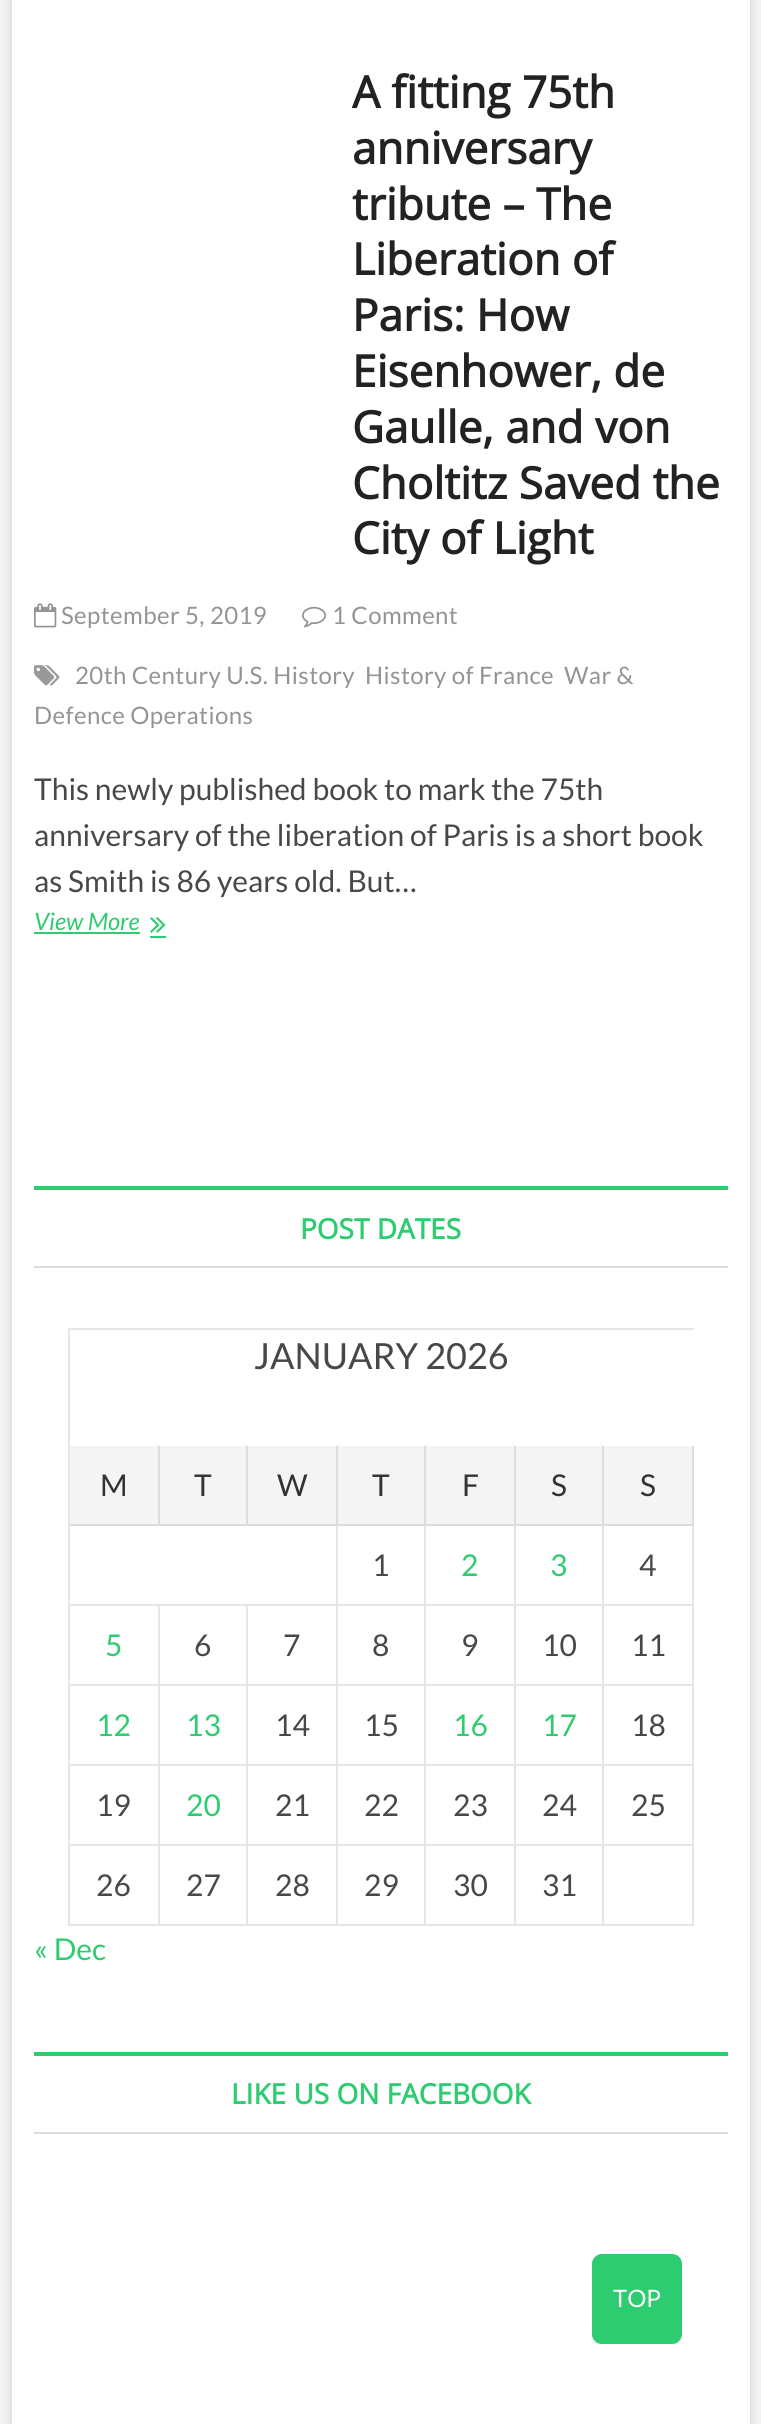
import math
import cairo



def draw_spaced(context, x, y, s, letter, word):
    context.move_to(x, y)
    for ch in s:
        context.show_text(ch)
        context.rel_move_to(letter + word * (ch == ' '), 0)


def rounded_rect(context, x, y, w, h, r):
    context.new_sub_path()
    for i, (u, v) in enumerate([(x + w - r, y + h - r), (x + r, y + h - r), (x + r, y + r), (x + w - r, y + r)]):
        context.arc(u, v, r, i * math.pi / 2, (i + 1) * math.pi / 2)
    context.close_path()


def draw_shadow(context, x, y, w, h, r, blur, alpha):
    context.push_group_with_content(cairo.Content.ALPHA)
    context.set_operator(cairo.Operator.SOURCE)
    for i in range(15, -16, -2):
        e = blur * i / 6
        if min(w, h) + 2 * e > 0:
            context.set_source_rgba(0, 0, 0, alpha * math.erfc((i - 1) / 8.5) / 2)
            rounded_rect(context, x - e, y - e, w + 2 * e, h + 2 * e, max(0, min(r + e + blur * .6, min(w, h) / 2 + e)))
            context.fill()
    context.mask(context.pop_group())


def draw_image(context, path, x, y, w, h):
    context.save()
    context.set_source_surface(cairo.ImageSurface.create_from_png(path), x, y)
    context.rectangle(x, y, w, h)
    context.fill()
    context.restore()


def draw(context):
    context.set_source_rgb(244 / 255, 244 / 255, 244 / 255)
    context.paint()
    context.set_source_rgb(0, 0, 0)
    draw_shadow(context, 12, -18, 738, 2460, 0, 6, 0.15)
    context.set_source_rgb(1, 1, 1)
    context.rectangle(12, 0, 738, 2424)
    context.fill()
    draw_image(context, "images/1.png", 34, 603, 23, 25)
    draw_image(context, "images/2.png", 302, 606, 24, 22)
    draw_image(context, "images/3.png", 34, 665, 26, 21)
    context.set_source_rgb(45 / 255, 204 / 255, 112 / 255)
    context.rectangle(34, 932, 106, 2)
    context.fill()
    draw_image(context, "images/4.png", 150, 917, 16, 16)
    context.rectangle(150, 936, 16, 2)
    context.fill()
    context.rectangle(34, 1186, 694, 4)
    context.fill()
    context.set_source_rgb(221 / 255, 221 / 255, 221 / 255)
    context.rectangle(34, 1266, 694, 2)
    context.fill()
    context.set_source_rgb(230 / 255, 230 / 255, 230 / 255)
    context.new_path()
    context.move_to(68, 1328)
    context.line_to(694, 1328)
    context.line_to(694, 1330)
    context.line_to(70, 1330)
    context.close_path()
    context.fill()
    context.set_source_rgba(0, 0, 0, 0.1)
    context.new_path()
    context.move_to(68, 1926)
    context.line_to(68, 1328)
    context.line_to(70, 1330)
    context.line_to(70, 1926)
    context.close_path()
    context.fill()
    context.set_source_rgb(244 / 255, 244 / 255, 244 / 255)
    context.rectangle(70, 1446, 624, 80)
    context.fill()
    context.set_source_rgb(220 / 255, 220 / 255, 220 / 255)
    context.new_path()
    context.move_to(160, 1446)
    context.line_to(160, 1526)
    context.line_to(158, 1524)
    context.line_to(158, 1446)
    context.close_path()
    context.fill()
    context.set_source_rgba(0, 0, 0, 0.1)
    context.new_path()
    context.move_to(160, 1526)
    context.line_to(70, 1526)
    context.line_to(70, 1524)
    context.line_to(158, 1524)
    context.close_path()
    context.fill()
    context.set_source_rgb(220 / 255, 220 / 255, 220 / 255)
    context.new_path()
    context.move_to(248, 1446)
    context.line_to(248, 1526)
    context.line_to(246, 1524)
    context.line_to(246, 1446)
    context.close_path()
    context.fill()
    context.set_source_rgba(0, 0, 0, 0.1)
    context.new_path()
    context.move_to(248, 1526)
    context.line_to(160, 1526)
    context.line_to(160, 1524)
    context.line_to(246, 1524)
    context.close_path()
    context.fill()
    context.set_source_rgb(220 / 255, 220 / 255, 220 / 255)
    context.new_path()
    context.move_to(338, 1446)
    context.line_to(338, 1526)
    context.line_to(336, 1524)
    context.line_to(336, 1446)
    context.close_path()
    context.fill()
    context.set_source_rgba(0, 0, 0, 0.1)
    context.new_path()
    context.move_to(338, 1526)
    context.line_to(248, 1526)
    context.line_to(248, 1524)
    context.line_to(336, 1524)
    context.close_path()
    context.fill()
    context.set_source_rgb(220 / 255, 220 / 255, 220 / 255)
    context.new_path()
    context.move_to(426, 1446)
    context.line_to(426, 1526)
    context.line_to(424, 1524)
    context.line_to(424, 1446)
    context.close_path()
    context.fill()
    context.set_source_rgba(0, 0, 0, 0.1)
    context.new_path()
    context.move_to(426, 1526)
    context.line_to(338, 1526)
    context.line_to(338, 1524)
    context.line_to(424, 1524)
    context.close_path()
    context.fill()
    context.set_source_rgb(220 / 255, 220 / 255, 220 / 255)
    context.new_path()
    context.move_to(516, 1446)
    context.line_to(516, 1526)
    context.line_to(514, 1524)
    context.line_to(514, 1446)
    context.close_path()
    context.fill()
    context.set_source_rgba(0, 0, 0, 0.1)
    context.new_path()
    context.move_to(516, 1526)
    context.line_to(426, 1526)
    context.line_to(426, 1524)
    context.line_to(514, 1524)
    context.close_path()
    context.fill()
    context.set_source_rgb(220 / 255, 220 / 255, 220 / 255)
    context.new_path()
    context.move_to(604, 1446)
    context.line_to(604, 1526)
    context.line_to(602, 1524)
    context.line_to(602, 1446)
    context.close_path()
    context.fill()
    context.set_source_rgba(0, 0, 0, 0.1)
    context.new_path()
    context.move_to(604, 1526)
    context.line_to(516, 1526)
    context.line_to(516, 1524)
    context.line_to(602, 1524)
    context.close_path()
    context.fill()
    context.set_source_rgb(220 / 255, 220 / 255, 220 / 255)
    context.new_path()
    context.move_to(694, 1446)
    context.line_to(694, 1526)
    context.line_to(692, 1524)
    context.line_to(692, 1446)
    context.close_path()
    context.fill()
    context.set_source_rgba(0, 0, 0, 0.1)
    context.new_path()
    context.move_to(694, 1526)
    context.line_to(604, 1526)
    context.line_to(604, 1524)
    context.line_to(692, 1524)
    context.close_path()
    context.fill()
    context.set_source_rgb(230 / 255, 230 / 255, 230 / 255)
    context.new_path()
    context.move_to(338, 1526)
    context.line_to(338, 1606)
    context.line_to(336, 1604)
    context.line_to(336, 1526)
    context.close_path()
    context.fill()
    context.set_source_rgba(0, 0, 0, 0.1)
    context.new_path()
    context.move_to(338, 1606)
    context.line_to(70, 1606)
    context.line_to(70, 1604)
    context.line_to(336, 1604)
    context.close_path()
    context.fill()
    context.set_source_rgb(230 / 255, 230 / 255, 230 / 255)
    context.new_path()
    context.move_to(426, 1526)
    context.line_to(426, 1606)
    context.line_to(424, 1604)
    context.line_to(424, 1526)
    context.close_path()
    context.fill()
    context.set_source_rgba(0, 0, 0, 0.1)
    context.new_path()
    context.move_to(426, 1606)
    context.line_to(338, 1606)
    context.line_to(338, 1604)
    context.line_to(424, 1604)
    context.close_path()
    context.fill()
    context.set_source_rgb(230 / 255, 230 / 255, 230 / 255)
    context.new_path()
    context.move_to(516, 1526)
    context.line_to(516, 1606)
    context.line_to(514, 1604)
    context.line_to(514, 1526)
    context.close_path()
    context.fill()
    context.set_source_rgba(0, 0, 0, 0.1)
    context.new_path()
    context.move_to(516, 1606)
    context.line_to(426, 1606)
    context.line_to(426, 1604)
    context.line_to(514, 1604)
    context.close_path()
    context.fill()
    context.set_source_rgb(230 / 255, 230 / 255, 230 / 255)
    context.new_path()
    context.move_to(604, 1526)
    context.line_to(604, 1606)
    context.line_to(602, 1604)
    context.line_to(602, 1526)
    context.close_path()
    context.fill()
    context.set_source_rgba(0, 0, 0, 0.1)
    context.new_path()
    context.move_to(604, 1606)
    context.line_to(516, 1606)
    context.line_to(516, 1604)
    context.line_to(602, 1604)
    context.close_path()
    context.fill()
    context.set_source_rgb(230 / 255, 230 / 255, 230 / 255)
    context.new_path()
    context.move_to(694, 1526)
    context.line_to(694, 1606)
    context.line_to(692, 1604)
    context.line_to(692, 1526)
    context.close_path()
    context.fill()
    context.set_source_rgba(0, 0, 0, 0.1)
    context.new_path()
    context.move_to(694, 1606)
    context.line_to(604, 1606)
    context.line_to(604, 1604)
    context.line_to(692, 1604)
    context.close_path()
    context.fill()
    context.set_source_rgb(230 / 255, 230 / 255, 230 / 255)
    context.new_path()
    context.move_to(160, 1606)
    context.line_to(160, 1686)
    context.line_to(158, 1684)
    context.line_to(158, 1606)
    context.close_path()
    context.fill()
    context.set_source_rgba(0, 0, 0, 0.1)
    context.new_path()
    context.move_to(160, 1686)
    context.line_to(70, 1686)
    context.line_to(70, 1684)
    context.line_to(158, 1684)
    context.close_path()
    context.fill()
    context.set_source_rgb(230 / 255, 230 / 255, 230 / 255)
    context.new_path()
    context.move_to(248, 1606)
    context.line_to(248, 1686)
    context.line_to(246, 1684)
    context.line_to(246, 1606)
    context.close_path()
    context.fill()
    context.set_source_rgba(0, 0, 0, 0.1)
    context.new_path()
    context.move_to(248, 1686)
    context.line_to(160, 1686)
    context.line_to(160, 1684)
    context.line_to(246, 1684)
    context.close_path()
    context.fill()
    context.set_source_rgb(230 / 255, 230 / 255, 230 / 255)
    context.new_path()
    context.move_to(338, 1606)
    context.line_to(338, 1686)
    context.line_to(336, 1684)
    context.line_to(336, 1606)
    context.close_path()
    context.fill()
    context.set_source_rgba(0, 0, 0, 0.1)
    context.new_path()
    context.move_to(338, 1686)
    context.line_to(248, 1686)
    context.line_to(248, 1684)
    context.line_to(336, 1684)
    context.close_path()
    context.fill()
    context.set_source_rgb(230 / 255, 230 / 255, 230 / 255)
    context.new_path()
    context.move_to(426, 1606)
    context.line_to(426, 1686)
    context.line_to(424, 1684)
    context.line_to(424, 1606)
    context.close_path()
    context.fill()
    context.set_source_rgba(0, 0, 0, 0.1)
    context.new_path()
    context.move_to(426, 1686)
    context.line_to(338, 1686)
    context.line_to(338, 1684)
    context.line_to(424, 1684)
    context.close_path()
    context.fill()
    context.set_source_rgb(230 / 255, 230 / 255, 230 / 255)
    context.new_path()
    context.move_to(516, 1606)
    context.line_to(516, 1686)
    context.line_to(514, 1684)
    context.line_to(514, 1606)
    context.close_path()
    context.fill()
    context.set_source_rgba(0, 0, 0, 0.1)
    context.new_path()
    context.move_to(516, 1686)
    context.line_to(426, 1686)
    context.line_to(426, 1684)
    context.line_to(514, 1684)
    context.close_path()
    context.fill()
    context.set_source_rgb(230 / 255, 230 / 255, 230 / 255)
    context.new_path()
    context.move_to(604, 1606)
    context.line_to(604, 1686)
    context.line_to(602, 1684)
    context.line_to(602, 1606)
    context.close_path()
    context.fill()
    context.set_source_rgba(0, 0, 0, 0.1)
    context.new_path()
    context.move_to(604, 1686)
    context.line_to(516, 1686)
    context.line_to(516, 1684)
    context.line_to(602, 1684)
    context.close_path()
    context.fill()
    context.set_source_rgb(230 / 255, 230 / 255, 230 / 255)
    context.new_path()
    context.move_to(694, 1606)
    context.line_to(694, 1686)
    context.line_to(692, 1684)
    context.line_to(692, 1606)
    context.close_path()
    context.fill()
    context.set_source_rgba(0, 0, 0, 0.1)
    context.new_path()
    context.move_to(694, 1686)
    context.line_to(604, 1686)
    context.line_to(604, 1684)
    context.line_to(692, 1684)
    context.close_path()
    context.fill()
    context.set_source_rgb(230 / 255, 230 / 255, 230 / 255)
    context.new_path()
    context.move_to(160, 1686)
    context.line_to(160, 1766)
    context.line_to(158, 1764)
    context.line_to(158, 1686)
    context.close_path()
    context.fill()
    context.set_source_rgba(0, 0, 0, 0.1)
    context.new_path()
    context.move_to(160, 1766)
    context.line_to(70, 1766)
    context.line_to(70, 1764)
    context.line_to(158, 1764)
    context.close_path()
    context.fill()
    context.set_source_rgb(230 / 255, 230 / 255, 230 / 255)
    context.new_path()
    context.move_to(248, 1686)
    context.line_to(248, 1766)
    context.line_to(246, 1764)
    context.line_to(246, 1686)
    context.close_path()
    context.fill()
    context.set_source_rgba(0, 0, 0, 0.1)
    context.new_path()
    context.move_to(248, 1766)
    context.line_to(160, 1766)
    context.line_to(160, 1764)
    context.line_to(246, 1764)
    context.close_path()
    context.fill()
    context.set_source_rgb(230 / 255, 230 / 255, 230 / 255)
    context.new_path()
    context.move_to(338, 1686)
    context.line_to(338, 1766)
    context.line_to(336, 1764)
    context.line_to(336, 1686)
    context.close_path()
    context.fill()
    context.set_source_rgba(0, 0, 0, 0.1)
    context.new_path()
    context.move_to(338, 1766)
    context.line_to(248, 1766)
    context.line_to(248, 1764)
    context.line_to(336, 1764)
    context.close_path()
    context.fill()
    context.set_source_rgb(230 / 255, 230 / 255, 230 / 255)
    context.new_path()
    context.move_to(426, 1686)
    context.line_to(426, 1766)
    context.line_to(424, 1764)
    context.line_to(424, 1686)
    context.close_path()
    context.fill()
    context.set_source_rgba(0, 0, 0, 0.1)
    context.new_path()
    context.move_to(426, 1766)
    context.line_to(338, 1766)
    context.line_to(338, 1764)
    context.line_to(424, 1764)
    context.close_path()
    context.fill()
    context.set_source_rgb(230 / 255, 230 / 255, 230 / 255)
    context.new_path()
    context.move_to(516, 1686)
    context.line_to(516, 1766)
    context.line_to(514, 1764)
    context.line_to(514, 1686)
    context.close_path()
    context.fill()
    context.set_source_rgba(0, 0, 0, 0.1)
    context.new_path()
    context.move_to(516, 1766)
    context.line_to(426, 1766)
    context.line_to(426, 1764)
    context.line_to(514, 1764)
    context.close_path()
    context.fill()
    context.set_source_rgb(230 / 255, 230 / 255, 230 / 255)
    context.new_path()
    context.move_to(604, 1686)
    context.line_to(604, 1766)
    context.line_to(602, 1764)
    context.line_to(602, 1686)
    context.close_path()
    context.fill()
    context.set_source_rgba(0, 0, 0, 0.1)
    context.new_path()
    context.move_to(604, 1766)
    context.line_to(516, 1766)
    context.line_to(516, 1764)
    context.line_to(602, 1764)
    context.close_path()
    context.fill()
    context.set_source_rgb(230 / 255, 230 / 255, 230 / 255)
    context.new_path()
    context.move_to(694, 1686)
    context.line_to(694, 1766)
    context.line_to(692, 1764)
    context.line_to(692, 1686)
    context.close_path()
    context.fill()
    context.set_source_rgba(0, 0, 0, 0.1)
    context.new_path()
    context.move_to(694, 1766)
    context.line_to(604, 1766)
    context.line_to(604, 1764)
    context.line_to(692, 1764)
    context.close_path()
    context.fill()
    context.set_source_rgb(230 / 255, 230 / 255, 230 / 255)
    context.new_path()
    context.move_to(160, 1766)
    context.line_to(160, 1846)
    context.line_to(158, 1844)
    context.line_to(158, 1766)
    context.close_path()
    context.fill()
    context.set_source_rgba(0, 0, 0, 0.1)
    context.new_path()
    context.move_to(160, 1846)
    context.line_to(70, 1846)
    context.line_to(70, 1844)
    context.line_to(158, 1844)
    context.close_path()
    context.fill()
    context.set_source_rgb(230 / 255, 230 / 255, 230 / 255)
    context.new_path()
    context.move_to(248, 1766)
    context.line_to(248, 1846)
    context.line_to(246, 1844)
    context.line_to(246, 1766)
    context.close_path()
    context.fill()
    context.set_source_rgba(0, 0, 0, 0.1)
    context.new_path()
    context.move_to(248, 1846)
    context.line_to(160, 1846)
    context.line_to(160, 1844)
    context.line_to(246, 1844)
    context.close_path()
    context.fill()
    context.set_source_rgb(230 / 255, 230 / 255, 230 / 255)
    context.new_path()
    context.move_to(338, 1766)
    context.line_to(338, 1846)
    context.line_to(336, 1844)
    context.line_to(336, 1766)
    context.close_path()
    context.fill()
    context.set_source_rgba(0, 0, 0, 0.1)
    context.new_path()
    context.move_to(338, 1846)
    context.line_to(248, 1846)
    context.line_to(248, 1844)
    context.line_to(336, 1844)
    context.close_path()
    context.fill()
    context.set_source_rgb(230 / 255, 230 / 255, 230 / 255)
    context.new_path()
    context.move_to(426, 1766)
    context.line_to(426, 1846)
    context.line_to(424, 1844)
    context.line_to(424, 1766)
    context.close_path()
    context.fill()
    context.set_source_rgba(0, 0, 0, 0.1)
    context.new_path()
    context.move_to(426, 1846)
    context.line_to(338, 1846)
    context.line_to(338, 1844)
    context.line_to(424, 1844)
    context.close_path()
    context.fill()
    context.set_source_rgb(230 / 255, 230 / 255, 230 / 255)
    context.new_path()
    context.move_to(516, 1766)
    context.line_to(516, 1846)
    context.line_to(514, 1844)
    context.line_to(514, 1766)
    context.close_path()
    context.fill()
    context.set_source_rgba(0, 0, 0, 0.1)
    context.new_path()
    context.move_to(516, 1846)
    context.line_to(426, 1846)
    context.line_to(426, 1844)
    context.line_to(514, 1844)
    context.close_path()
    context.fill()
    context.set_source_rgb(230 / 255, 230 / 255, 230 / 255)
    context.new_path()
    context.move_to(604, 1766)
    context.line_to(604, 1846)
    context.line_to(602, 1844)
    context.line_to(602, 1766)
    context.close_path()
    context.fill()
    context.set_source_rgba(0, 0, 0, 0.1)
    context.new_path()
    context.move_to(604, 1846)
    context.line_to(516, 1846)
    context.line_to(516, 1844)
    context.line_to(602, 1844)
    context.close_path()
    context.fill()
    context.set_source_rgb(230 / 255, 230 / 255, 230 / 255)
    context.new_path()
    context.move_to(694, 1766)
    context.line_to(694, 1846)
    context.line_to(692, 1844)
    context.line_to(692, 1766)
    context.close_path()
    context.fill()
    context.set_source_rgba(0, 0, 0, 0.1)
    context.new_path()
    context.move_to(694, 1846)
    context.line_to(604, 1846)
    context.line_to(604, 1844)
    context.line_to(692, 1844)
    context.close_path()
    context.fill()
    context.set_source_rgb(230 / 255, 230 / 255, 230 / 255)
    context.new_path()
    context.move_to(160, 1846)
    context.line_to(160, 1926)
    context.line_to(158, 1924)
    context.line_to(158, 1846)
    context.close_path()
    context.fill()
    context.set_source_rgba(0, 0, 0, 0.1)
    context.new_path()
    context.move_to(160, 1926)
    context.line_to(70, 1926)
    context.line_to(70, 1924)
    context.line_to(158, 1924)
    context.close_path()
    context.fill()
    context.set_source_rgb(230 / 255, 230 / 255, 230 / 255)
    context.new_path()
    context.move_to(248, 1846)
    context.line_to(248, 1926)
    context.line_to(246, 1924)
    context.line_to(246, 1846)
    context.close_path()
    context.fill()
    context.set_source_rgba(0, 0, 0, 0.1)
    context.new_path()
    context.move_to(248, 1926)
    context.line_to(160, 1926)
    context.line_to(160, 1924)
    context.line_to(246, 1924)
    context.close_path()
    context.fill()
    context.set_source_rgb(230 / 255, 230 / 255, 230 / 255)
    context.new_path()
    context.move_to(338, 1846)
    context.line_to(338, 1926)
    context.line_to(336, 1924)
    context.line_to(336, 1846)
    context.close_path()
    context.fill()
    context.set_source_rgba(0, 0, 0, 0.1)
    context.new_path()
    context.move_to(338, 1926)
    context.line_to(248, 1926)
    context.line_to(248, 1924)
    context.line_to(336, 1924)
    context.close_path()
    context.fill()
    context.set_source_rgb(230 / 255, 230 / 255, 230 / 255)
    context.new_path()
    context.move_to(426, 1846)
    context.line_to(426, 1926)
    context.line_to(424, 1924)
    context.line_to(424, 1846)
    context.close_path()
    context.fill()
    context.set_source_rgba(0, 0, 0, 0.1)
    context.new_path()
    context.move_to(426, 1926)
    context.line_to(338, 1926)
    context.line_to(338, 1924)
    context.line_to(424, 1924)
    context.close_path()
    context.fill()
    context.set_source_rgb(230 / 255, 230 / 255, 230 / 255)
    context.new_path()
    context.move_to(516, 1846)
    context.line_to(516, 1926)
    context.line_to(514, 1924)
    context.line_to(514, 1846)
    context.close_path()
    context.fill()
    context.set_source_rgba(0, 0, 0, 0.1)
    context.new_path()
    context.move_to(516, 1926)
    context.line_to(426, 1926)
    context.line_to(426, 1924)
    context.line_to(514, 1924)
    context.close_path()
    context.fill()
    context.set_source_rgb(230 / 255, 230 / 255, 230 / 255)
    context.new_path()
    context.move_to(604, 1846)
    context.line_to(604, 1926)
    context.line_to(602, 1924)
    context.line_to(602, 1846)
    context.close_path()
    context.fill()
    context.set_source_rgba(0, 0, 0, 0.1)
    context.new_path()
    context.move_to(604, 1926)
    context.line_to(516, 1926)
    context.line_to(516, 1924)
    context.line_to(602, 1924)
    context.close_path()
    context.fill()
    context.set_source_rgb(230 / 255, 230 / 255, 230 / 255)
    context.new_path()
    context.move_to(694, 1846)
    context.line_to(694, 1926)
    context.line_to(692, 1924)
    context.line_to(692, 1846)
    context.close_path()
    context.fill()
    context.set_source_rgba(0, 0, 0, 0.1)
    context.new_path()
    context.move_to(694, 1926)
    context.line_to(604, 1926)
    context.line_to(604, 1924)
    context.line_to(692, 1924)
    context.close_path()
    context.fill()
    context.set_source_rgb(45 / 255, 204 / 255, 112 / 255)
    context.rectangle(34, 2052, 694, 4)
    context.fill()
    context.set_source_rgb(221 / 255, 221 / 255, 221 / 255)
    context.rectangle(34, 2132, 694, 2)
    context.fill()
    context.save()
    context.rectangle(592, 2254, 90, 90)
    context.clip()
    context.set_source_rgb(0, 0, 0)
    draw_shadow(context, 592, 2258, 90, 90, 10, 3, 0.08)
    context.restore()
    context.set_source_rgb(45 / 255, 204 / 255, 112 / 255)
    rounded_rect(context, 592, 2254, 90, 90, 10)
    context.fill()
    context.select_font_face("Open Sans", cairo.FontSlant.NORMAL, cairo.FontWeight.BOLD)
    context.set_font_size(44)
    context.set_source_rgb(34 / 255, 34 / 255, 34 / 255)
    context.move_to(352, 108)
    context.show_text("A fitting 75th")
    context.move_to(352, 164)
    context.show_text("anniversary")
    context.move_to(352, 220)
    context.show_text("tribute – The")
    context.move_to(352, 275)
    context.show_text("Liberation of")
    context.move_to(352, 331)
    context.show_text("Paris: How")
    context.move_to(352, 387)
    context.show_text("Eisenhower, de")
    context.move_to(352, 443)
    context.show_text("Gaulle, and von")
    context.move_to(352, 499)
    context.show_text("Choltitz Saved the")
    context.move_to(352, 554)
    context.show_text("City of Light")
    context.select_font_face("Lato")
    context.set_font_size(24)
    context.set_source_rgb(148 / 255, 148 / 255, 148 / 255)
    draw_spaced(context, 61, 624, "September 5, 2019", 0.4, 0)
    draw_spaced(context, 332, 624, "1 Comment", 0.4, 0)
    draw_spaced(context, 75, 684, "20th Century U.S. History", 0.4, 0)
    draw_spaced(context, 365, 684, "History of France", 0.4, 0)
    draw_spaced(context, 564, 684, "War &", 0.4, 0)
    draw_spaced(context, 34, 724, "Defence Operations", 0.4, 0)
    context.set_font_size(30)
    context.set_source_rgb(72 / 255, 72 / 255, 72 / 255)
    context.move_to(34, 800)
    context.show_text("This newly published book to mark the 75th")
    context.move_to(34, 846)
    context.show_text("anniversary of the liberation of Paris is a short book")
    context.move_to(34, 892)
    context.show_text("as Smith is 86 years old. But…")
    context.select_font_face("Lato", cairo.FontSlant.ITALIC)
    context.set_font_size(24)
    context.set_source_rgb(45 / 255, 204 / 255, 112 / 255)
    context.move_to(34, 930)
    context.show_text("View More")
    context.select_font_face("Open Sans", cairo.FontSlant.NORMAL, cairo.FontWeight.BOLD)
    context.set_font_size(28)
    context.move_to(300, 1239)
    context.show_text("POST DATES")
    context.select_font_face("Lato")
    context.set_font_size(36)
    context.set_source_rgb(72 / 255, 72 / 255, 72 / 255)
    context.move_to(254, 1369)
    context.show_text("JANUARY 2026")
    context.set_font_size(30)
    context.set_source_rgb(51 / 255, 51 / 255, 51 / 255)
    context.move_to(100, 1496)
    context.show_text("M")
    context.move_to(194, 1496)
    context.show_text("T")
    context.move_to(277, 1496)
    context.show_text("W")
    context.move_to(372, 1496)
    context.show_text("T")
    context.move_to(462, 1496)
    context.show_text("F")
    context.move_to(551, 1496)
    context.show_text("S")
    context.move_to(640, 1496)
    context.show_text("S")
    context.set_source_rgb(72 / 255, 72 / 255, 72 / 255)
    context.move_to(372, 1576)
    context.show_text("1")
    context.set_source_rgb(45 / 255, 204 / 255, 112 / 255)
    context.move_to(461, 1576)
    context.show_text("2")
    context.move_to(550, 1576)
    context.show_text("3")
    context.set_source_rgb(72 / 255, 72 / 255, 72 / 255)
    context.move_to(639, 1576)
    context.show_text("4")
    context.set_source_rgb(45 / 255, 204 / 255, 112 / 255)
    context.move_to(105, 1656)
    context.show_text("5")
    context.set_source_rgb(72 / 255, 72 / 255, 72 / 255)
    context.move_to(194, 1656)
    context.show_text("6")
    context.move_to(283, 1656)
    context.show_text("7")
    context.move_to(372, 1656)
    context.show_text("8")
    context.move_to(461, 1656)
    context.show_text("9")
    context.move_to(542, 1656)
    context.show_text("10")
    context.move_to(631, 1656)
    context.show_text("11")
    context.set_source_rgb(45 / 255, 204 / 255, 112 / 255)
    context.move_to(96, 1736)
    context.show_text("12")
    context.move_to(186, 1736)
    context.show_text("13")
    context.set_source_rgb(72 / 255, 72 / 255, 72 / 255)
    context.move_to(275, 1736)
    context.show_text("14")
    context.move_to(364, 1736)
    context.show_text("15")
    context.set_source_rgb(45 / 255, 204 / 255, 112 / 255)
    context.move_to(453, 1736)
    context.show_text("16")
    context.move_to(542, 1736)
    context.show_text("17")
    context.set_source_rgb(72 / 255, 72 / 255, 72 / 255)
    context.move_to(631, 1736)
    context.show_text("18")
    context.move_to(96, 1816)
    context.show_text("19")
    context.set_source_rgb(45 / 255, 204 / 255, 112 / 255)
    context.move_to(186, 1816)
    context.show_text("20")
    context.set_source_rgb(72 / 255, 72 / 255, 72 / 255)
    context.move_to(275, 1816)
    context.show_text("21")
    context.move_to(364, 1816)
    context.show_text("22")
    context.move_to(453, 1816)
    context.show_text("23")
    context.move_to(542, 1816)
    context.show_text("24")
    context.move_to(631, 1816)
    context.show_text("25")
    context.move_to(96, 1896)
    context.show_text("26")
    context.move_to(186, 1896)
    context.show_text("27")
    context.move_to(275, 1896)
    context.show_text("28")
    context.move_to(364, 1896)
    context.show_text("29")
    context.move_to(453, 1896)
    context.show_text("30")
    context.move_to(542, 1896)
    context.show_text("31")
    context.set_source_rgb(45 / 255, 204 / 255, 112 / 255)
    context.move_to(34, 1960)
    context.show_text("« Dec")
    context.select_font_face("Open Sans", cairo.FontSlant.NORMAL, cairo.FontWeight.BOLD)
    context.set_font_size(28)
    context.move_to(231, 2104)
    context.show_text("LIKE US ON FACEBOOK")
    context.select_font_face("Lato")
    context.set_font_size(24)
    context.set_source_rgb(1, 1, 1)
    context.move_to(613, 2307)
    context.show_text("TOP")


surface = cairo.ImageSurface(cairo.Format.RGB24, 761, 2424)
context = cairo.Context(surface)
options = cairo.FontOptions()
options.set_hint_metrics(cairo.HintMetrics.OFF)
options.set_hint_style(cairo.HintStyle.NONE)
context.set_font_options(options)
context.set_miter_limit(4)
draw(context)
surface.write_to_png("out.png")
